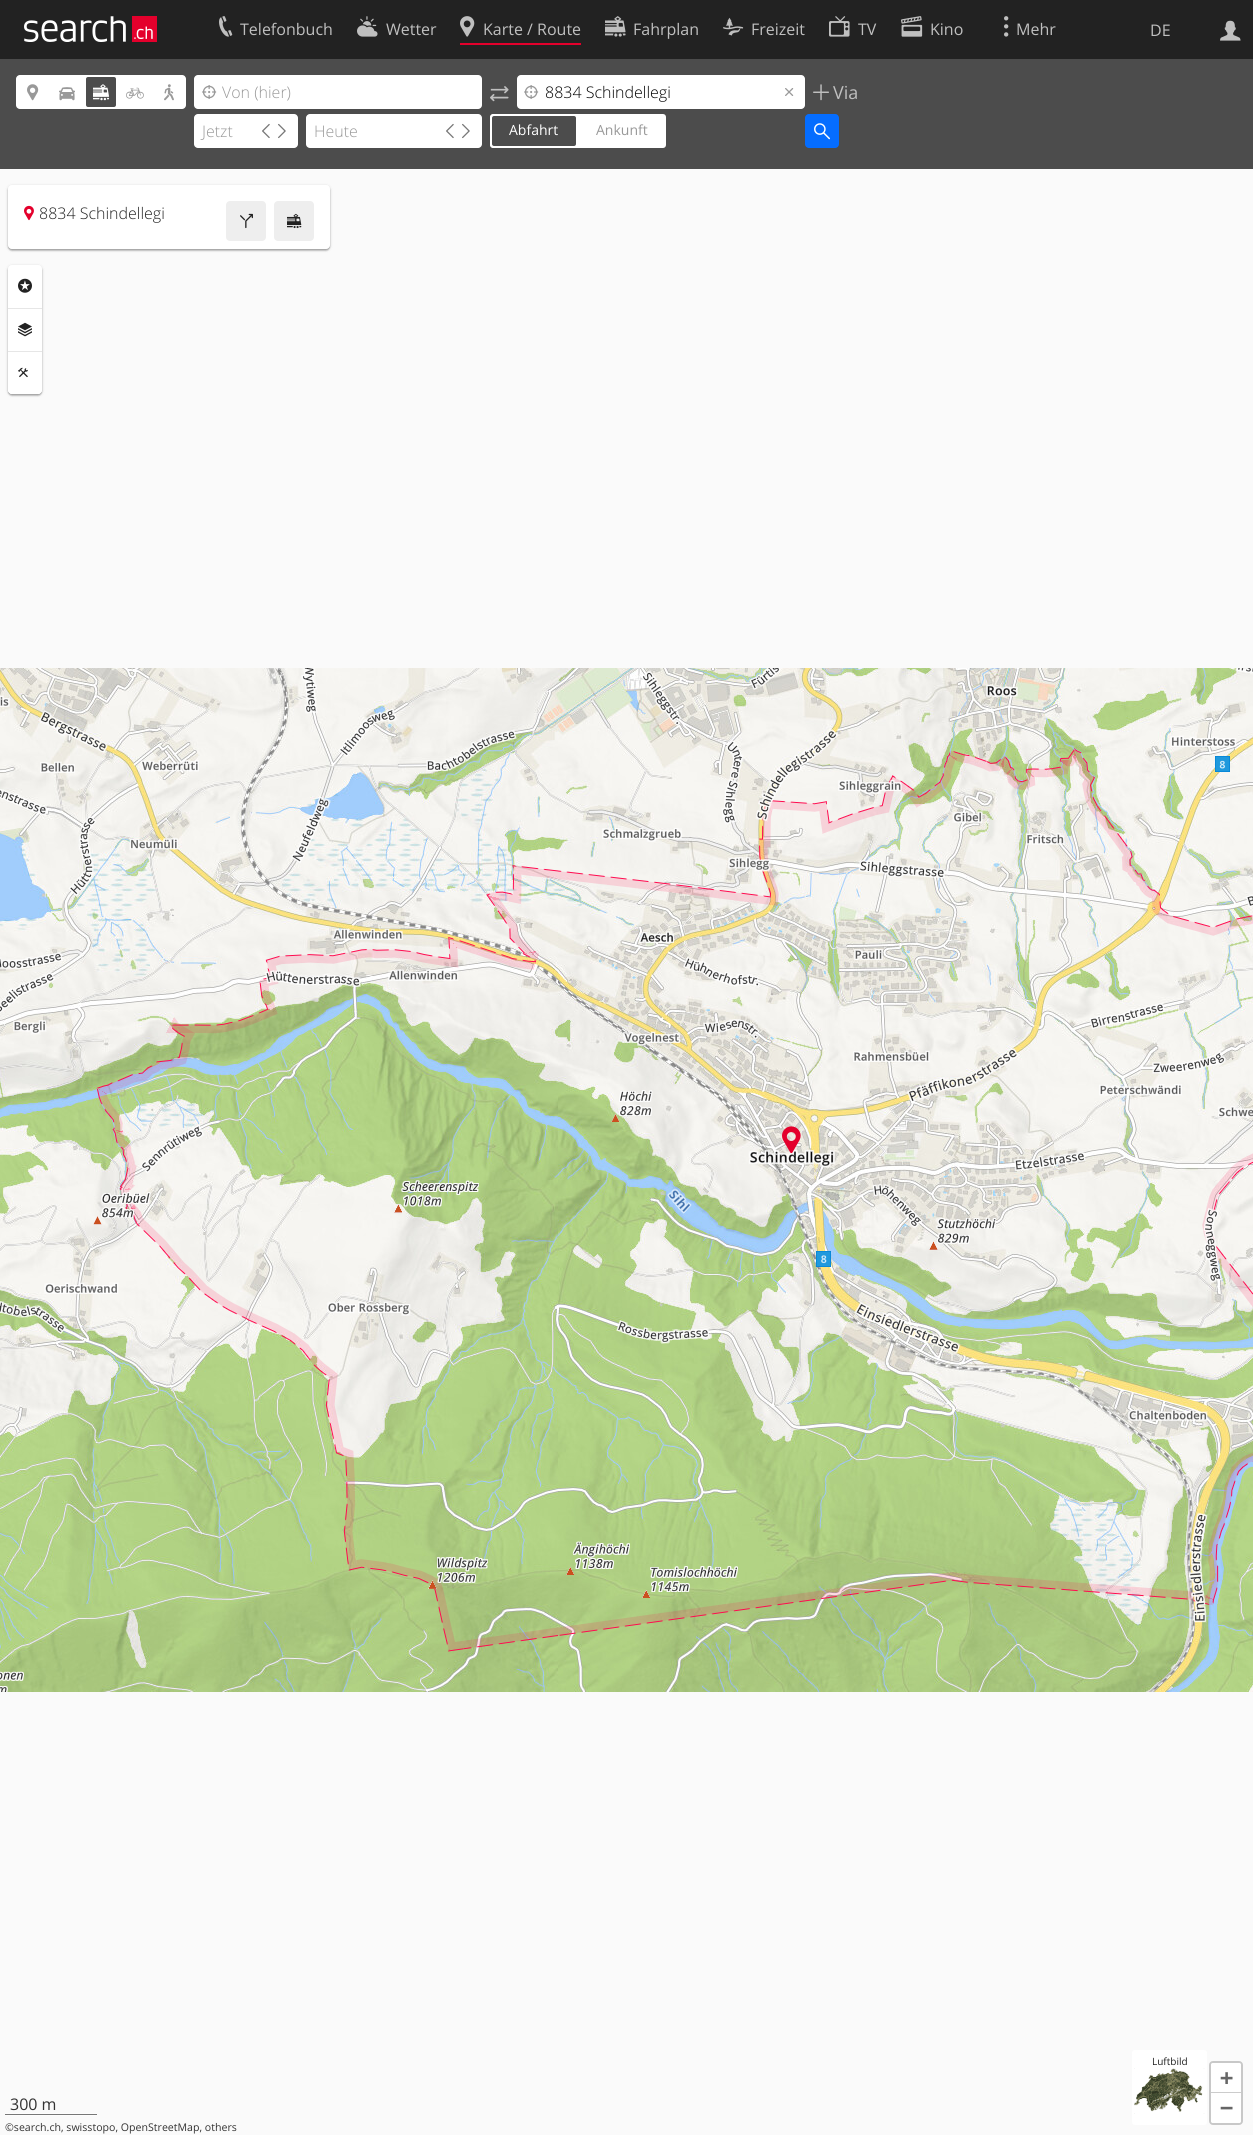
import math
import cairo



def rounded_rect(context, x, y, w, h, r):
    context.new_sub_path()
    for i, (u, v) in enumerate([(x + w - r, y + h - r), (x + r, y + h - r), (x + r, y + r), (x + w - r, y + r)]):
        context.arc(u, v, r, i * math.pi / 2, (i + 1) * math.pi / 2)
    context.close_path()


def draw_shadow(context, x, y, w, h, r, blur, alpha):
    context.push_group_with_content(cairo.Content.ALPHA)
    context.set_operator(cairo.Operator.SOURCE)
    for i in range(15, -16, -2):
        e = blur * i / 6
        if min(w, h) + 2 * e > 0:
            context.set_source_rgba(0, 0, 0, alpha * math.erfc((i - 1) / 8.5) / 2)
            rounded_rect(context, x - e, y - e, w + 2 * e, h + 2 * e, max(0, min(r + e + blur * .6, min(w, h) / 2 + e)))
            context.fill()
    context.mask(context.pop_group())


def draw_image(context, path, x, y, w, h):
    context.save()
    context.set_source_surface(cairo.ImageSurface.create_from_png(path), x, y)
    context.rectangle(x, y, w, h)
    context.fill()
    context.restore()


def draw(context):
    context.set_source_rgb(250 / 255, 250 / 255, 250 / 255)
    context.paint()
    context.set_source_rgb(34 / 255, 34 / 255, 34 / 255)
    context.rectangle(0, 0, 1253, 59)
    context.fill()
    draw_image(context, "images/1.png", 24, 16, 133, 26)
    draw_image(context, "images/2.png", 219, 16, 14, 21)
    draw_image(context, "images/3.png", 357, 16, 21, 21)
    context.set_source_rgb(228 / 255, 0, 44 / 255)
    context.rectangle(460, 43, 121, 2)
    context.fill()
    draw_image(context, "images/4.png", 460, 16, 15, 21)
    draw_image(context, "images/5.png", 605, 16, 21, 21)
    draw_image(context, "images/6.png", 723, 17, 21, 19)
    draw_image(context, "images/7.png", 829, 16, 21, 21)
    draw_image(context, "images/8.png", 901, 16, 22, 21)
    draw_image(context, "images/9.png", 1004, 16, 5, 21)
    draw_image(context, "images/10.png", 1220, 20, 21, 21)
    context.set_source_rgb(76 / 255, 76 / 255, 76 / 255)
    context.rectangle(0, 59, 1253, 110)
    context.fill()
    context.set_source_rgb(1, 1, 1)
    rounded_rect(context, 16, 75, 170, 34, 4)
    context.fill()
    draw_image(context, "images/11.png", 27, 84, 12, 17)
    context.set_source_rgb(76 / 255, 76 / 255, 76 / 255)
    rounded_rect(context, 85, 76, 32, 32, 3)
    context.fill_preserve()
    context.set_source_rgb(1, 1, 1)
    context.stroke()
    draw_image(context, "images/12.png", 59, 87, 16, 14)
    draw_image(context, "images/13.png", 93, 84, 17, 17)
    draw_image(context, "images/14.png", 126, 87, 18, 12)
    draw_image(context, "images/15.png", 164, 84, 10, 17)
    rounded_rect(context, 194, 75, 288, 34, 4)
    context.fill()
    draw_image(context, "images/16.png", 202, 85, 15, 14)
    draw_image(context, "images/17.png", 490, 86, 19, 16)
    rounded_rect(context, 517, 75, 288, 34, 4)
    context.fill()
    draw_image(context, "images/16.png", 524, 85, 15, 14)
    draw_image(context, "images/18.png", 785, 88, 9, 8)
    draw_image(context, "images/19.png", 813, 84, 16, 17)
    rounded_rect(context, 194, 114, 104, 34, 4)
    context.fill()
    draw_image(context, "images/20.png", 262, 123, 8, 16)
    draw_image(context, "images/21.png", 278, 123, 8, 16)
    rounded_rect(context, 306, 114, 176, 34, 4)
    context.fill()
    draw_image(context, "images/20.png", 446, 123, 8, 16)
    draw_image(context, "images/21.png", 462, 123, 8, 16)
    rounded_rect(context, 490, 114, 176, 34, 3)
    context.fill()
    context.set_source_rgb(76 / 255, 76 / 255, 76 / 255)
    rounded_rect(context, 491, 115, 86, 32, 3)
    context.fill_preserve()
    context.set_source_rgb(1, 1, 1)
    context.stroke()
    context.set_source_rgb(5 / 255, 109 / 255, 1)
    rounded_rect(context, 805, 114, 34, 34, 4)
    context.fill()
    draw_image(context, "images/22.png", 814, 123, 16, 17)
    context.save()
    context.set_fill_rule(cairo.FillRule.EVEN_ODD)
    context.new_path()
    context.move_to(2, 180)
    context.line_to(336, 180)
    context.line_to(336, 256)
    context.line_to(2, 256)
    context.close_path()
    context.move_to(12, 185)
    context.line_to(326, 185)
    context.curve_to(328, 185, 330, 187, 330, 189)
    context.line_to(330, 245)
    context.curve_to(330, 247, 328, 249, 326, 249)
    context.line_to(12, 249)
    context.curve_to(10, 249, 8, 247, 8, 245)
    context.line_to(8, 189)
    context.curve_to(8, 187, 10, 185, 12, 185)
    context.close_path()
    context.clip()
    context.set_source_rgb(0, 0, 0)
    draw_shadow(context, 8, 186, 322, 64, 4, 1.5, 0.2)
    context.restore()
    context.set_source_rgb(0, 0, 0)
    draw_shadow(context, 8, 187, 322, 64, 4, 0.5, 0.12)
    draw_shadow(context, 8, 186, 322, 64, 4, 0.5, 0.14)
    context.set_source_rgb(1, 1, 1)
    rounded_rect(context, 8, 185, 322, 64, 4)
    context.fill()
    draw_image(context, "images/23.png", 24, 205, 10, 16)
    context.set_source_rgb(238 / 255, 238 / 255, 238 / 255)
    rounded_rect(context, 226, 201, 40, 40, 4)
    context.fill()
    draw_image(context, "images/24.png", 240, 213, 13, 16)
    rounded_rect(context, 274, 201, 40, 40, 4)
    context.fill()
    draw_image(context, "images/25.png", 287, 213, 15, 16)
    context.save()
    context.set_fill_rule(cairo.FillRule.EVEN_ODD)
    context.new_path()
    context.move_to(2, 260)
    context.line_to(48, 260)
    context.line_to(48, 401)
    context.line_to(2, 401)
    context.close_path()
    context.move_to(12, 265)
    context.line_to(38, 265)
    context.curve_to(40, 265, 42, 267, 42, 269)
    context.line_to(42, 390)
    context.curve_to(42, 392, 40, 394, 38, 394)
    context.line_to(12, 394)
    context.curve_to(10, 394, 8, 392, 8, 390)
    context.line_to(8, 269)
    context.curve_to(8, 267, 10, 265, 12, 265)
    context.close_path()
    context.clip()
    context.set_source_rgb(0, 0, 0)
    draw_shadow(context, 8, 266, 34, 129, 4, 1.5, 0.2)
    context.restore()
    context.set_source_rgb(0, 0, 0)
    draw_shadow(context, 8, 267, 34, 129, 4, 0.5, 0.12)
    draw_shadow(context, 8, 266, 34, 129, 4, 0.5, 0.14)
    context.set_source_rgb(1, 1, 1)
    rounded_rect(context, 8, 265, 34, 129, 4)
    context.fill()
    context.set_source_rgb(230 / 255, 230 / 255, 230 / 255)
    context.rectangle(8, 308, 34, 1)
    context.fill()
    draw_image(context, "images/26.png", 18, 278, 14, 15)
    context.rectangle(8, 351, 34, 1)
    context.fill()
    draw_image(context, "images/27.png", 18, 322, 14, 15)
    context.save()
    rounded_rect(context, 8, 265, 34, 129, 3)
    context.clip()
    context.set_source_rgb(1, 1, 1)
    context.new_path()
    context.move_to(8, 352)
    context.line_to(42, 352)
    context.line_to(42, 390)
    context.curve_to(42, 392, 40, 394, 38, 394)
    context.line_to(12, 394)
    context.curve_to(10, 394, 8, 392, 8, 390)
    context.close_path()
    context.fill()
    context.restore()
    draw_image(context, "images/28.png", 18, 367, 10, 11)
    context.set_source_rgb(1, 1, 1)
    rounded_rect(context, 1132, 2050, 75, 75, 3)
    context.fill()
    draw_image(context, "images/29.png", 1134, 2068, 71, 46)
    draw_image(context, "images/30.png", 0, 668, 46, 512)
    draw_image(context, "images/31.png", 46, 668, 512, 512)
    draw_image(context, "images/32.png", 558, 668, 512, 512)
    draw_image(context, "images/33.png", 1070, 668, 183, 512)
    draw_image(context, "images/34.png", 0, 1180, 46, 512)
    draw_image(context, "images/35.png", 46, 1180, 512, 512)
    draw_image(context, "images/36.png", 558, 1180, 512, 512)
    draw_image(context, "images/37.png", 1070, 1180, 183, 512)
    draw_image(context, "images/38.png", 0, 695, 46, 340)
    draw_image(context, "images/39.png", 46, 668, 512, 512)
    draw_image(context, "images/40.png", 558, 668, 512, 503)
    draw_image(context, "images/41.png", 1070, 668, 183, 512)
    draw_image(context, "images/42.png", 0, 1283, 46, 409)
    draw_image(context, "images/43.png", 46, 1180, 512, 472)
    draw_image(context, "images/44.png", 558, 1183, 512, 453)
    draw_image(context, "images/45.png", 1070, 1180, 183, 443)
    draw_image(context, "images/46.png", 782, 1126, 19, 28)
    rounded_rect(context, 1210, 2062, 32, 62, 3)
    context.set_source_rgb(200 / 255, 200 / 255, 200 / 255)
    context.stroke()
    context.set_source_rgb(1, 1, 1)
    context.new_path()
    context.move_to(1213, 2063)
    context.line_to(1239, 2063)
    context.curve_to(1240, 2063, 1241, 2064, 1241, 2065)
    context.line_to(1241, 2093)
    context.line_to(1211, 2093)
    context.line_to(1211, 2065)
    context.curve_to(1211, 2064, 1212, 2063, 1213, 2063)
    context.close_path()
    context.fill()
    context.set_source_rgb(204 / 255, 204 / 255, 204 / 255)
    context.rectangle(1211, 2092, 30, 1)
    context.fill()
    context.set_source_rgb(1, 1, 1)
    context.new_path()
    context.move_to(1211, 2093)
    context.line_to(1241, 2093)
    context.line_to(1241, 2121)
    context.curve_to(1241, 2122, 1240, 2123, 1239, 2123)
    context.line_to(1213, 2123)
    context.curve_to(1212, 2123, 1211, 2122, 1211, 2121)
    context.close_path()
    context.fill()
    context.set_source_rgb(253 / 255, 253 / 255, 253 / 255)
    context.rectangle(5, 2115, 92, 1)
    context.fill()
    context.rectangle(5, 2113, 92, 1)
    context.fill()
    context.set_source_rgb(119 / 255, 119 / 255, 119 / 255)
    context.rectangle(5, 2114, 92, 1)
    context.fill()
    context.select_font_face("Open Sans")
    context.set_font_size(16)
    context.set_source_rgb(191 / 255, 191 / 255, 191 / 255)
    context.move_to(240, 35)
    context.show_text("Telefonbuch")
    context.move_to(386, 35)
    context.show_text("Wetter")
    context.move_to(483, 35)
    context.show_text("Karte / Route")
    context.move_to(633, 35)
    context.show_text("Fahrplan")
    context.move_to(751, 35)
    context.show_text("Freizeit")
    context.move_to(858, 35)
    context.show_text("TV")
    context.move_to(930, 35)
    context.show_text("Kino")
    context.move_to(1016, 35)
    context.show_text("Mehr")
    context.move_to(1150, 36)
    context.show_text("DE")
    context.select_font_face("Open Sans Light")
    context.set_source_rgb(153 / 255, 153 / 255, 153 / 255)
    context.move_to(222, 98)
    context.show_text("Von (hier)")
    context.set_source_rgb(0, 0, 0)
    context.move_to(545, 98)
    context.show_text("8834 Schindellegi")
    context.select_font_face("Open Sans")
    context.set_font_size(18)
    context.set_source_rgb(191 / 255, 191 / 255, 191 / 255)
    context.move_to(833, 99)
    context.show_text("Via")
    context.select_font_face("Open Sans Light")
    context.set_font_size(16)
    context.set_source_rgb(153 / 255, 153 / 255, 153 / 255)
    context.move_to(202, 137)
    context.show_text("Jetzt")
    context.move_to(314, 137)
    context.show_text("Heute")
    context.select_font_face("Open Sans")
    context.set_font_size(14)
    context.set_source_rgb(1, 1, 1)
    context.move_to(509, 135)
    context.show_text("Abfahrt")
    context.set_source_rgb(153 / 255, 153 / 255, 153 / 255)
    context.move_to(596, 135)
    context.show_text("Ankunft")
    context.select_font_face("Open Sans Light")
    context.set_font_size(16)
    context.set_source_rgb(34 / 255, 34 / 255, 34 / 255)
    context.move_to(39, 219)
    context.show_text("8834 Schindellegi")
    context.select_font_face("Open Sans")
    context.set_font_size(10)
    context.move_to(1152, 2065)
    context.show_text("Luftbild")
    context.select_font_face("DejaVu Sans Mono", cairo.FontSlant.NORMAL, cairo.FontWeight.BOLD)
    context.set_font_size(22)
    context.set_source_rgb(102 / 255, 102 / 255, 102 / 255)
    context.move_to(1220, 2085)
    context.show_text("+")
    context.move_to(1220, 2115)
    context.show_text("−")
    context.select_font_face("Open Sans")
    context.set_font_size(16)
    context.set_source_rgb(51 / 255, 51 / 255, 51 / 255)
    context.move_to(10, 2110)
    context.show_text("300 m")
    context.set_font_size(10.6)
    context.move_to(5, 2131)
    context.show_text("©search.ch, swisstopo, OpenStreetMap, others")


surface = cairo.ImageSurface(cairo.Format.RGB24, 1253, 2135)
context = cairo.Context(surface)
options = cairo.FontOptions()
options.set_hint_metrics(cairo.HintMetrics.OFF)
options.set_hint_style(cairo.HintStyle.NONE)
context.set_font_options(options)
context.set_miter_limit(4)
draw(context)
surface.write_to_png("out.png")
